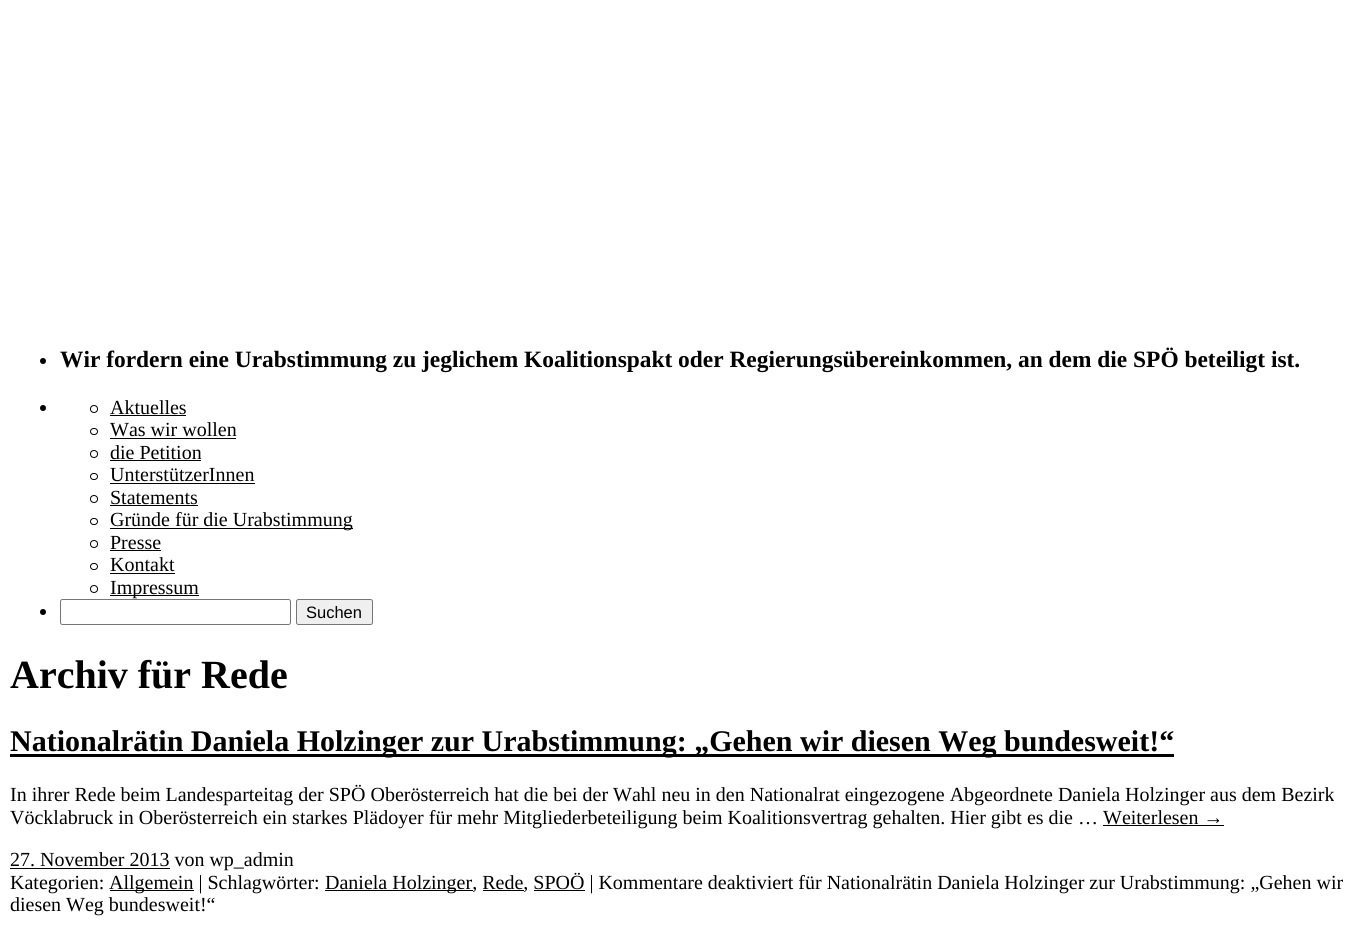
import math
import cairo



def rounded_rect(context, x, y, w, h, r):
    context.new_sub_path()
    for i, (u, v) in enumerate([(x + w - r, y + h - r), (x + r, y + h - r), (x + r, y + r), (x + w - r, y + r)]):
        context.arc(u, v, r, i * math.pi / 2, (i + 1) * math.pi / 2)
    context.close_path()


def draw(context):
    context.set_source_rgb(1, 1, 1)
    context.paint()
    context.set_source_rgb(0, 0, 0)
    context.arc(43, 361, 3, 0, 2 * math.pi)
    context.fill()
    context.arc(43, 408, 3, 0, 2 * math.pi)
    context.fill()
    context.arc(94, 409, 3.5, 0, 2 * math.pi)
    context.set_line_width(1)
    context.stroke()
    context.rectangle(110, 415, 76, 1)
    context.fill()
    rounded_rect(context, 90.5, 428.5, 7, 6, 3)
    context.stroke()
    context.rectangle(110, 438, 126, 1)
    context.fill()
    context.arc(94, 454, 3.5, 0, 2 * math.pi)
    context.stroke()
    context.rectangle(110, 460, 91, 1)
    context.fill()
    rounded_rect(context, 90.5, 473.5, 7, 6, 3)
    context.stroke()
    context.rectangle(110, 483, 145, 1)
    context.fill()
    context.arc(94, 499, 3.5, 0, 2 * math.pi)
    context.stroke()
    context.rectangle(110, 505, 88, 1)
    context.fill()
    rounded_rect(context, 90.5, 518.5, 7, 6, 3)
    context.stroke()
    context.rectangle(110, 528, 243, 1)
    context.fill()
    context.arc(94, 544, 3.5, 0, 2 * math.pi)
    context.stroke()
    context.rectangle(110, 550, 51, 1)
    context.fill()
    rounded_rect(context, 90.5, 563.5, 7, 6, 3)
    context.stroke()
    context.rectangle(110, 573, 65, 1)
    context.fill()
    context.arc(94, 589, 3.5, 0, 2 * math.pi)
    context.stroke()
    context.rectangle(110, 595, 89, 1)
    context.fill()
    context.arc(43, 612, 3, 0, 2 * math.pi)
    context.fill()
    rounded_rect(context, 60.5, 599.5, 230, 25, 2)
    context.set_source_rgb(118 / 255, 118 / 255, 118 / 255)
    context.stroke()
    context.set_source_rgb(239 / 255, 239 / 255, 239 / 255)
    rounded_rect(context, 296.5, 599.5, 76, 25, 2)
    context.fill_preserve()
    context.set_source_rgb(118 / 255, 118 / 255, 118 / 255)
    context.stroke()
    context.set_source_rgb(0, 0, 0)
    context.rectangle(10, 754, 1164, 3)
    context.fill()
    context.rectangle(1103, 825, 121, 1)
    context.fill()
    context.rectangle(10, 868, 160, 1)
    context.fill()
    context.rectangle(110, 890, 84, 1)
    context.fill()
    context.rectangle(325, 890, 148, 1)
    context.fill()
    context.rectangle(483, 890, 41, 1)
    context.fill()
    context.rectangle(534, 890, 51, 1)
    context.fill()
    context.select_font_face("Liberation Serif", cairo.FontSlant.NORMAL, cairo.FontWeight.BOLD)
    context.set_font_size(23.4)
    context.move_to(60, 367)
    context.show_text("Wir fordern eine Urabstimmung zu jeglichem Koalitionspakt oder Regierungsübereinkommen, an dem die SPÖ beteiligt ist.")
    context.select_font_face("Liberation Serif")
    context.set_font_size(20)
    context.move_to(110, 414)
    context.show_text("Aktuelles")
    context.move_to(110, 436)
    context.show_text("Was wir wollen")
    context.move_to(110, 459)
    context.show_text("die Petition")
    context.move_to(110, 481)
    context.show_text("UnterstützerInnen")
    context.move_to(110, 504)
    context.show_text("Statements")
    context.move_to(110, 526)
    context.show_text("Gründe für die Urabstimmung")
    context.move_to(110, 549)
    context.show_text("Presse")
    context.move_to(110, 571)
    context.show_text("Kontakt")
    context.move_to(110, 594)
    context.show_text("Impressum")
    context.select_font_face("Liberation Sans")
    context.set_font_size(16.5)
    context.move_to(306, 618)
    context.show_text("Suchen")
    context.select_font_face("Liberation Serif", cairo.FontSlant.NORMAL, cairo.FontWeight.BOLD)
    context.set_font_size(40)
    context.move_to(10, 688)
    context.show_text("Archiv für Rede")
    context.set_font_size(30)
    context.move_to(10, 751)
    context.show_text("Nationalrätin Daniela Holzinger zur Urabstimmung: „Gehen wir diesen Weg bundesweit!“")
    context.select_font_face("Liberation Serif")
    context.set_font_size(20)
    context.move_to(10, 801)
    context.show_text("In ihrer Rede beim Landesparteitag der SPÖ Oberösterreich hat die bei der Wahl neu in den Nationalrat eingezogene Abgeordnete Daniela Holzinger aus dem Bezirk")
    context.move_to(10, 824)
    context.show_text("Vöcklabruck in Oberösterreich ein starkes Plädoyer für mehr Mitgliederbeteiligung beim Koalitionsvertrag gehalten. Hier gibt es die … Weiterlesen →")
    context.move_to(10, 866)
    context.show_text("27. November 2013 von wp_admin")
    context.move_to(10, 889)
    context.show_text("Kategorien:")
    context.move_to(109, 889)
    context.show_text("Allgemein | Schlagwörter:")
    context.move_to(325, 889)
    context.show_text("Daniela Holzinger, Rede, SPOÖ | Kommentare deaktiviert für Nationalrätin Daniela Holzinger zur Urabstimmung: „Gehen wir")
    context.move_to(10, 911)
    context.show_text("diesen Weg bundesweit!“")


surface = cairo.ImageSurface(cairo.Format.RGB24, 1360, 943)
context = cairo.Context(surface)
options = cairo.FontOptions()
options.set_hint_metrics(cairo.HintMetrics.OFF)
options.set_hint_style(cairo.HintStyle.NONE)
context.set_font_options(options)
context.set_miter_limit(4)
draw(context)
surface.write_to_png("out.png")
